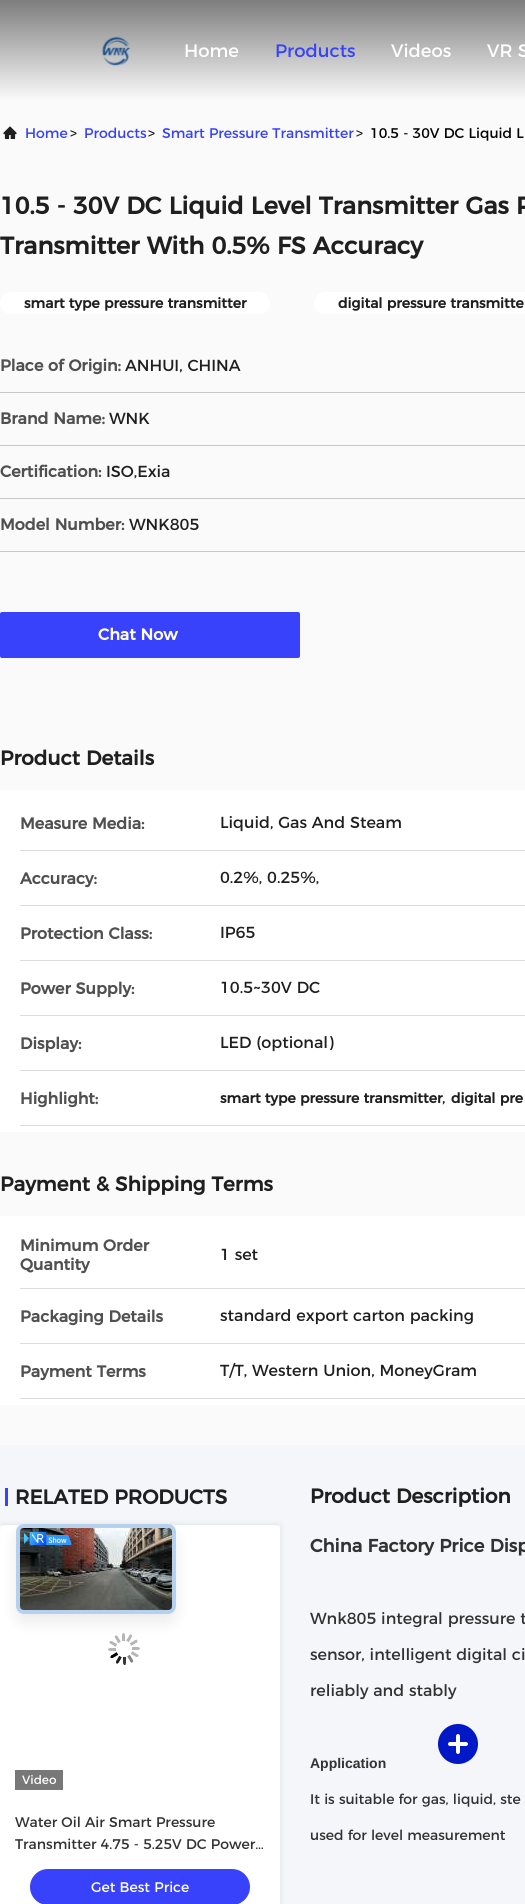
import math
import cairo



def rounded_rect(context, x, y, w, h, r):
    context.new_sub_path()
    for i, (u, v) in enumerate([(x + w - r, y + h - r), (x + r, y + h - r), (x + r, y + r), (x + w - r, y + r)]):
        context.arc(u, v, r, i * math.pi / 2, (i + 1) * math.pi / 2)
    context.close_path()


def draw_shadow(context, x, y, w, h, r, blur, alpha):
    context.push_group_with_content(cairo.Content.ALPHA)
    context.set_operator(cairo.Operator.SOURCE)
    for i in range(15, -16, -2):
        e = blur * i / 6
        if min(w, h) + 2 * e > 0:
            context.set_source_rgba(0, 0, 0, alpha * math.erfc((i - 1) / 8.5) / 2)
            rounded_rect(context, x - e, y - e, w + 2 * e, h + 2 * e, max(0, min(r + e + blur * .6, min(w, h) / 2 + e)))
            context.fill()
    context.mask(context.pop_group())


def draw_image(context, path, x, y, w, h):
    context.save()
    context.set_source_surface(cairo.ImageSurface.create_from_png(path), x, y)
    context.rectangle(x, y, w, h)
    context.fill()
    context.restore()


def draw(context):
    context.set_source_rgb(244 / 255, 246 / 255, 249 / 255)
    context.paint()
    gradient = cairo.LinearGradient(263, 0, 263, 100)
    gradient.add_color_stop_rgba(0, 125 / 255, 125 / 255, 125 / 255, 1)
    gradient.add_color_stop_rgba(1, 250 / 255, 250 / 255, 250 / 255, 1)
    context.set_source(gradient)
    context.rectangle(0, 0, 525, 100)
    context.fill()
    draw_image(context, "images/1.png", 101, 36, 29, 30)
    context.set_source_rgb(250 / 255, 250 / 255, 250 / 255)
    context.rectangle(0, 100, 525, 1345)
    context.fill()
    draw_image(context, "images/2.png", 3, 126, 14, 13)
    context.set_source_rgb(1, 1, 1)
    rounded_rect(context, 0, 292, 270, 22, 11)
    context.fill()
    context.new_path()
    context.move_to(325, 292)
    context.line_to(525, 292)
    context.line_to(525, 314)
    context.line_to(325, 314)
    context.curve_to(319, 314, 314, 309, 314, 303)
    context.curve_to(314, 297, 319, 292, 325, 292)
    context.close_path()
    context.fill()
    context.set_source_rgb(200 / 255, 200 / 255, 200 / 255)
    context.rectangle(0, 392, 525, 1)
    context.fill()
    context.rectangle(0, 445, 525, 1)
    context.fill()
    context.rectangle(0, 498, 525, 1)
    context.fill()
    context.rectangle(0, 551, 525, 1)
    context.fill()
    context.set_source_rgb(55 / 255, 66 / 255, 250 / 255)
    rounded_rect(context, 0, 612, 300, 46, 2)
    context.fill()
    context.set_source_rgb(1, 1, 1)
    context.rectangle(0, 790, 525, 342)
    context.fill()
    context.set_source_rgb(220 / 255, 220 / 255, 220 / 255)
    context.rectangle(20, 850, 505, 1)
    context.fill()
    context.rectangle(20, 905, 505, 1)
    context.fill()
    context.rectangle(20, 960, 505, 1)
    context.fill()
    context.rectangle(20, 1015, 505, 1)
    context.fill()
    context.rectangle(20, 1070, 505, 1)
    context.fill()
    context.rectangle(20, 1125, 505, 1)
    context.fill()
    context.set_source_rgb(1, 1, 1)
    context.rectangle(0, 1216, 525, 189)
    context.fill()
    context.set_source_rgb(220 / 255, 220 / 255, 220 / 255)
    context.rectangle(20, 1288, 505, 1)
    context.fill()
    context.rectangle(20, 1343, 505, 1)
    context.fill()
    context.rectangle(20, 1398, 505, 1)
    context.fill()
    context.set_source_rgb(55 / 255, 66 / 255, 250 / 255)
    context.rectangle(5, 1488, 3, 18)
    context.fill()
    context.set_source_rgb(1, 1, 1)
    rounded_rect(context, 0, 1525, 280, 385, 6)
    context.fill()
    context.save()
    context.set_fill_rule(cairo.FillRule.EVEN_ODD)
    context.new_path()
    context.move_to(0, 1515)
    context.line_to(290, 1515)
    context.line_to(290, 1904)
    context.line_to(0, 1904)
    context.close_path()
    context.move_to(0, 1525)
    context.line_to(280, 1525)
    context.line_to(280, 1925)
    context.line_to(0, 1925)
    context.close_path()
    context.clip()
    context.set_source_rgb(0, 0, 0)
    draw_shadow(context, 0, 1525, 280, 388, 0, 3, 0.1)
    context.restore()
    draw_image(context, "images/3.png", 108, 1633, 32, 32)
    context.set_source_rgb(120 / 255, 120 / 255, 120 / 255)
    context.rectangle(15, 1770, 48, 20)
    context.fill()
    context.set_source_rgb(55 / 255, 66 / 255, 250 / 255)
    rounded_rect(context, 30, 1869, 220, 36, 18)
    context.fill()
    context.set_source_rgb(0, 0, 0)
    draw_shadow(context, 16, 1532, 160, 90, 8, 8, 0.08)
    context.set_source_rgb(238 / 255, 238 / 255, 238 / 255)
    rounded_rect(context, 16, 1524, 160, 90, 8)
    context.fill()
    rounded_rect(context, 18, 1526, 156, 86, 6)
    context.set_source_rgba(4 / 255, 120 / 255, 237 / 255, 0.24)
    context.set_line_width(4)
    context.stroke()
    draw_image(context, "images/4.png", 20, 1528, 152, 82)
    draw_image(context, "images/5.png", 24, 1532, 48, 13)
    context.set_source_rgb(0, 24 / 255, 198 / 255)
    context.arc(458, 1744, 20, 0, 2 * math.pi)
    context.fill()
    context.set_source_rgb(1, 1, 1)
    rounded_rect(context, 448, 1742, 20, 4, 2)
    context.fill()
    context.new_path()
    context.move_to(460, 1736)
    context.line_to(460, 1752)
    context.curve_to(460, 1753, 459, 1754, 458, 1754)
    context.curve_to(457, 1754, 456, 1753, 456, 1752)
    context.line_to(456, 1736)
    context.curve_to(456, 1735, 457, 1734, 458, 1734)
    context.curve_to(459, 1734, 460, 1735, 460, 1736)
    context.close_path()
    context.fill()
    context.select_font_face("Montserrat")
    context.set_font_size(18)
    context.move_to(184, 57)
    context.show_text("Home")
    context.set_source_rgb(55 / 255, 66 / 255, 250 / 255)
    context.move_to(275, 57)
    context.show_text("Products")
    context.set_source_rgb(1, 1, 1)
    context.move_to(391, 57)
    context.show_text("Videos")
    context.move_to(487, 57)
    context.show_text("VR S")
    context.set_font_size(14)
    context.set_source_rgb(55 / 255, 66 / 255, 250 / 255)
    context.move_to(25, 138)
    context.show_text("Home")
    context.set_source_rgb(31 / 255, 31 / 255, 31 / 255)
    context.move_to(70, 138)
    context.show_text(">")
    context.set_source_rgb(55 / 255, 66 / 255, 250 / 255)
    context.move_to(84, 138)
    context.show_text("Products")
    context.set_source_rgb(31 / 255, 31 / 255, 31 / 255)
    context.move_to(148, 138)
    context.show_text(">")
    context.set_source_rgb(55 / 255, 66 / 255, 250 / 255)
    context.move_to(162, 138)
    context.show_text("Smart Pressure Transmitter")
    context.set_source_rgb(31 / 255, 31 / 255, 31 / 255)
    context.move_to(356, 138)
    context.show_text(">")
    context.set_source_rgb(0, 0, 0)
    context.move_to(370, 138)
    context.show_text("10.5 - 30V DC Liquid L")
    context.select_font_face("Montserrat", cairo.FontSlant.NORMAL, cairo.FontWeight.BOLD)
    context.set_font_size(24)
    context.set_source_rgb(31 / 255, 31 / 255, 31 / 255)
    context.move_to(0, 214)
    context.show_text("10.5 - 30V DC Liquid Level Transmitter Gas P")
    context.move_to(0, 254)
    context.show_text("Transmitter With 0.5% FS Accuracy")
    context.set_font_size(14)
    context.move_to(24, 308)
    context.show_text("smart type pressure transmitter")
    context.move_to(338, 308)
    context.show_text("digital pressure transmitte")
    context.set_font_size(16)
    context.set_source_rgb(80 / 255, 80 / 255, 80 / 255)
    context.move_to(0, 371)
    context.show_text("Place of Origin:")
    context.select_font_face("Montserrat")
    context.set_source_rgb(31 / 255, 31 / 255, 31 / 255)
    context.move_to(125, 371)
    context.show_text("ANHUI, CHINA")
    context.select_font_face("Montserrat", cairo.FontSlant.NORMAL, cairo.FontWeight.BOLD)
    context.set_source_rgb(80 / 255, 80 / 255, 80 / 255)
    context.move_to(0, 424)
    context.show_text("Brand Name:")
    context.select_font_face("Montserrat")
    context.set_source_rgb(31 / 255, 31 / 255, 31 / 255)
    context.move_to(109, 424)
    context.show_text("WNK")
    context.select_font_face("Montserrat", cairo.FontSlant.NORMAL, cairo.FontWeight.BOLD)
    context.set_source_rgb(80 / 255, 80 / 255, 80 / 255)
    context.move_to(0, 477)
    context.show_text("Certification:")
    context.select_font_face("Montserrat")
    context.set_source_rgb(31 / 255, 31 / 255, 31 / 255)
    context.move_to(106, 477)
    context.show_text("ISO,Exia")
    context.select_font_face("Montserrat", cairo.FontSlant.NORMAL, cairo.FontWeight.BOLD)
    context.set_source_rgb(80 / 255, 80 / 255, 80 / 255)
    context.move_to(0, 530)
    context.show_text("Model Number:")
    context.select_font_face("Montserrat")
    context.set_source_rgb(31 / 255, 31 / 255, 31 / 255)
    context.move_to(129, 530)
    context.show_text("WNK805")
    context.select_font_face("Montserrat", cairo.FontSlant.NORMAL, cairo.FontWeight.BOLD)
    context.set_source_rgb(1, 1, 1)
    context.move_to(98, 640)
    context.show_text("Chat Now")
    context.set_font_size(20)
    context.set_source_rgb(31 / 255, 31 / 255, 31 / 255)
    context.move_to(0, 765)
    context.show_text("Product Details")
    context.set_font_size(16)
    context.set_source_rgb(80 / 255, 80 / 255, 80 / 255)
    context.move_to(20, 829)
    context.show_text("Measure Media:")
    context.select_font_face("Montserrat")
    context.set_source_rgb(31 / 255, 31 / 255, 31 / 255)
    context.move_to(220, 828)
    context.show_text("Liquid, Gas And Steam")
    context.select_font_face("Montserrat", cairo.FontSlant.NORMAL, cairo.FontWeight.BOLD)
    context.set_source_rgb(80 / 255, 80 / 255, 80 / 255)
    context.move_to(20, 884)
    context.show_text("Accuracy:")
    context.select_font_face("Montserrat")
    context.set_source_rgb(31 / 255, 31 / 255, 31 / 255)
    context.move_to(220, 883)
    context.show_text("0.2%, 0.25%,")
    context.select_font_face("Montserrat", cairo.FontSlant.NORMAL, cairo.FontWeight.BOLD)
    context.set_source_rgb(80 / 255, 80 / 255, 80 / 255)
    context.move_to(20, 939)
    context.show_text("Protection Class:")
    context.select_font_face("Montserrat")
    context.set_source_rgb(31 / 255, 31 / 255, 31 / 255)
    context.move_to(220, 938)
    context.show_text("IP65")
    context.select_font_face("Montserrat", cairo.FontSlant.NORMAL, cairo.FontWeight.BOLD)
    context.set_source_rgb(80 / 255, 80 / 255, 80 / 255)
    context.move_to(20, 994)
    context.show_text("Power Supply:")
    context.select_font_face("Montserrat")
    context.set_source_rgb(31 / 255, 31 / 255, 31 / 255)
    context.move_to(220, 993)
    context.show_text("10.5~30V DC")
    context.select_font_face("Montserrat", cairo.FontSlant.NORMAL, cairo.FontWeight.BOLD)
    context.set_source_rgb(80 / 255, 80 / 255, 80 / 255)
    context.move_to(20, 1049)
    context.show_text("Display:")
    context.select_font_face("Montserrat")
    context.set_source_rgb(31 / 255, 31 / 255, 31 / 255)
    context.move_to(220, 1048)
    context.show_text("LED (optional)")
    context.select_font_face("Montserrat", cairo.FontSlant.NORMAL, cairo.FontWeight.BOLD)
    context.set_source_rgb(80 / 255, 80 / 255, 80 / 255)
    context.move_to(20, 1104)
    context.show_text("Highlight:")
    context.set_font_size(14)
    context.set_source_rgb(31 / 255, 31 / 255, 31 / 255)
    context.move_to(220, 1103)
    context.show_text("smart type pressure transmitter")
    context.select_font_face("Montserrat")
    context.set_font_size(16)
    context.move_to(442, 1103)
    context.show_text(",")
    context.select_font_face("Montserrat", cairo.FontSlant.NORMAL, cairo.FontWeight.BOLD)
    context.set_font_size(14)
    context.move_to(451, 1103)
    context.show_text("digital pre")
    context.set_font_size(20)
    context.move_to(0, 1191)
    context.show_text("Payment & Shipping Terms")
    context.set_font_size(16)
    context.set_source_rgb(80 / 255, 80 / 255, 80 / 255)
    context.move_to(20, 1251)
    context.show_text("Minimum Order")
    context.move_to(20, 1270)
    context.show_text("Quantity")
    context.select_font_face("Montserrat")
    context.set_source_rgb(31 / 255, 31 / 255, 31 / 255)
    context.move_to(220, 1260)
    context.show_text("1 set")
    context.select_font_face("Montserrat", cairo.FontSlant.NORMAL, cairo.FontWeight.BOLD)
    context.set_source_rgb(80 / 255, 80 / 255, 80 / 255)
    context.move_to(20, 1322)
    context.show_text("Packaging Details")
    context.select_font_face("Montserrat")
    context.set_source_rgb(31 / 255, 31 / 255, 31 / 255)
    context.move_to(220, 1321)
    context.show_text("standard export carton packing")
    context.select_font_face("Montserrat", cairo.FontSlant.NORMAL, cairo.FontWeight.BOLD)
    context.set_source_rgb(80 / 255, 80 / 255, 80 / 255)
    context.move_to(20, 1377)
    context.show_text("Payment Terms")
    context.select_font_face("Montserrat")
    context.set_source_rgb(31 / 255, 31 / 255, 31 / 255)
    context.move_to(220, 1376)
    context.show_text("T/T, Western Union, MoneyGram")
    context.select_font_face("Montserrat", cairo.FontSlant.NORMAL, cairo.FontWeight.BOLD)
    context.set_font_size(20)
    context.move_to(15, 1504)
    context.show_text("RELATED PRODUCTS")
    context.select_font_face("Montserrat")
    context.set_font_size(12)
    context.set_source_rgb(1, 1, 1)
    context.move_to(22, 1784)
    context.show_text("Video")
    context.set_font_size(14)
    context.set_source_rgb(50 / 255, 50 / 255, 50 / 255)
    context.move_to(15, 1827)
    context.show_text("Water Oil Air Smart Pressure")
    context.move_to(15, 1849)
    context.show_text("Transmitter 4.75 - 5.25V DC Power…")
    context.set_source_rgb(1, 1, 1)
    context.move_to(91, 1892)
    context.show_text("Get Best Price")
    context.select_font_face("Montserrat", cairo.FontSlant.NORMAL, cairo.FontWeight.BOLD)
    context.set_font_size(20)
    context.set_source_rgb(31 / 255, 31 / 255, 31 / 255)
    context.move_to(310, 1503)
    context.show_text("Product Description")
    context.set_font_size(18)
    context.set_source_rgb(50 / 255, 50 / 255, 50 / 255)
    context.move_to(310, 1552)
    context.show_text("China Factory Price Disp")
    context.select_font_face("Montserrat")
    context.set_font_size(16)
    context.move_to(310, 1624)
    context.show_text("Wnk805 integral pressure t")
    context.move_to(310, 1660)
    context.show_text("sensor, intelligent digital ci")
    context.move_to(310, 1696)
    context.show_text("reliably and stably")
    context.select_font_face("Liberation Sans", cairo.FontSlant.NORMAL, cairo.FontWeight.BOLD)
    context.set_font_size(14)
    context.move_to(310, 1768)
    context.show_text("Application")
    context.select_font_face("Montserrat")
    context.move_to(310, 1804)
    context.show_text("It is suitable for gas, liquid, ste")
    context.move_to(310, 1840)
    context.show_text("used for level measurement")


surface = cairo.ImageSurface(cairo.Format.RGB24, 525, 1904)
context = cairo.Context(surface)
options = cairo.FontOptions()
options.set_hint_metrics(cairo.HintMetrics.OFF)
options.set_hint_style(cairo.HintStyle.NONE)
context.set_font_options(options)
context.set_miter_limit(4)
draw(context)
surface.write_to_png("out.png")
